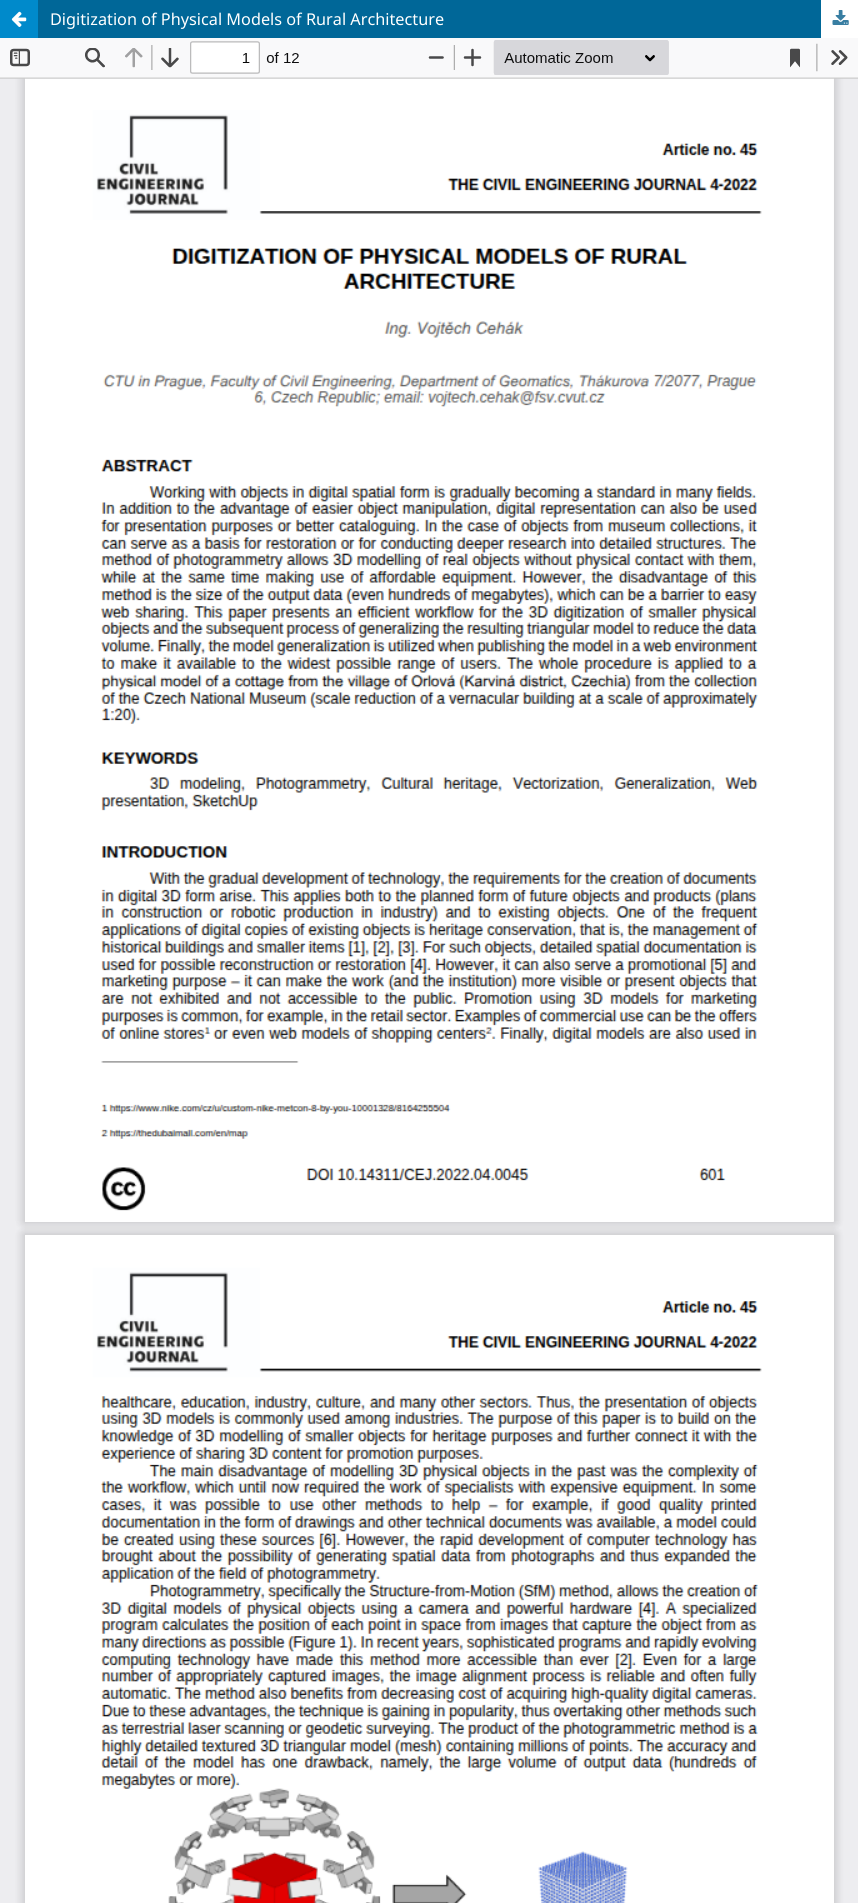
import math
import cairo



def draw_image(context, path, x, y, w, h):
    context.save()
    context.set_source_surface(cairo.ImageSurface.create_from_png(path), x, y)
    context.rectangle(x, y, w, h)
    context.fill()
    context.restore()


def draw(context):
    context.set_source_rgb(1, 1, 1)
    context.paint()
    context.set_source_rgb(0, 103 / 255, 152 / 255)
    context.rectangle(38, 0, 783, 38)
    context.fill()
    context.set_source_rgb(0, 138 / 255, 203 / 255)
    context.rectangle(0, 0, 38, 38)
    context.fill()
    draw_image(context, "images/1.png", 11, 11, 16, 16)
    draw_image(context, "images/2.png", 832, 10, 17, 15)
    draw_image(context, "images/3.png", 0, 38, 858, 1865)
    context.select_font_face("Noto Sans")
    context.set_font_size(16.25)
    context.set_source_rgb(1, 1, 1)
    context.move_to(50, 25)
    context.show_text("Digitization of Physical Models of Rural Architecture")


surface = cairo.ImageSurface(cairo.Format.RGB24, 858, 1903)
context = cairo.Context(surface)
options = cairo.FontOptions()
options.set_hint_metrics(cairo.HintMetrics.OFF)
options.set_hint_style(cairo.HintStyle.NONE)
context.set_font_options(options)
context.set_miter_limit(4)
draw(context)
surface.write_to_png("out.png")
